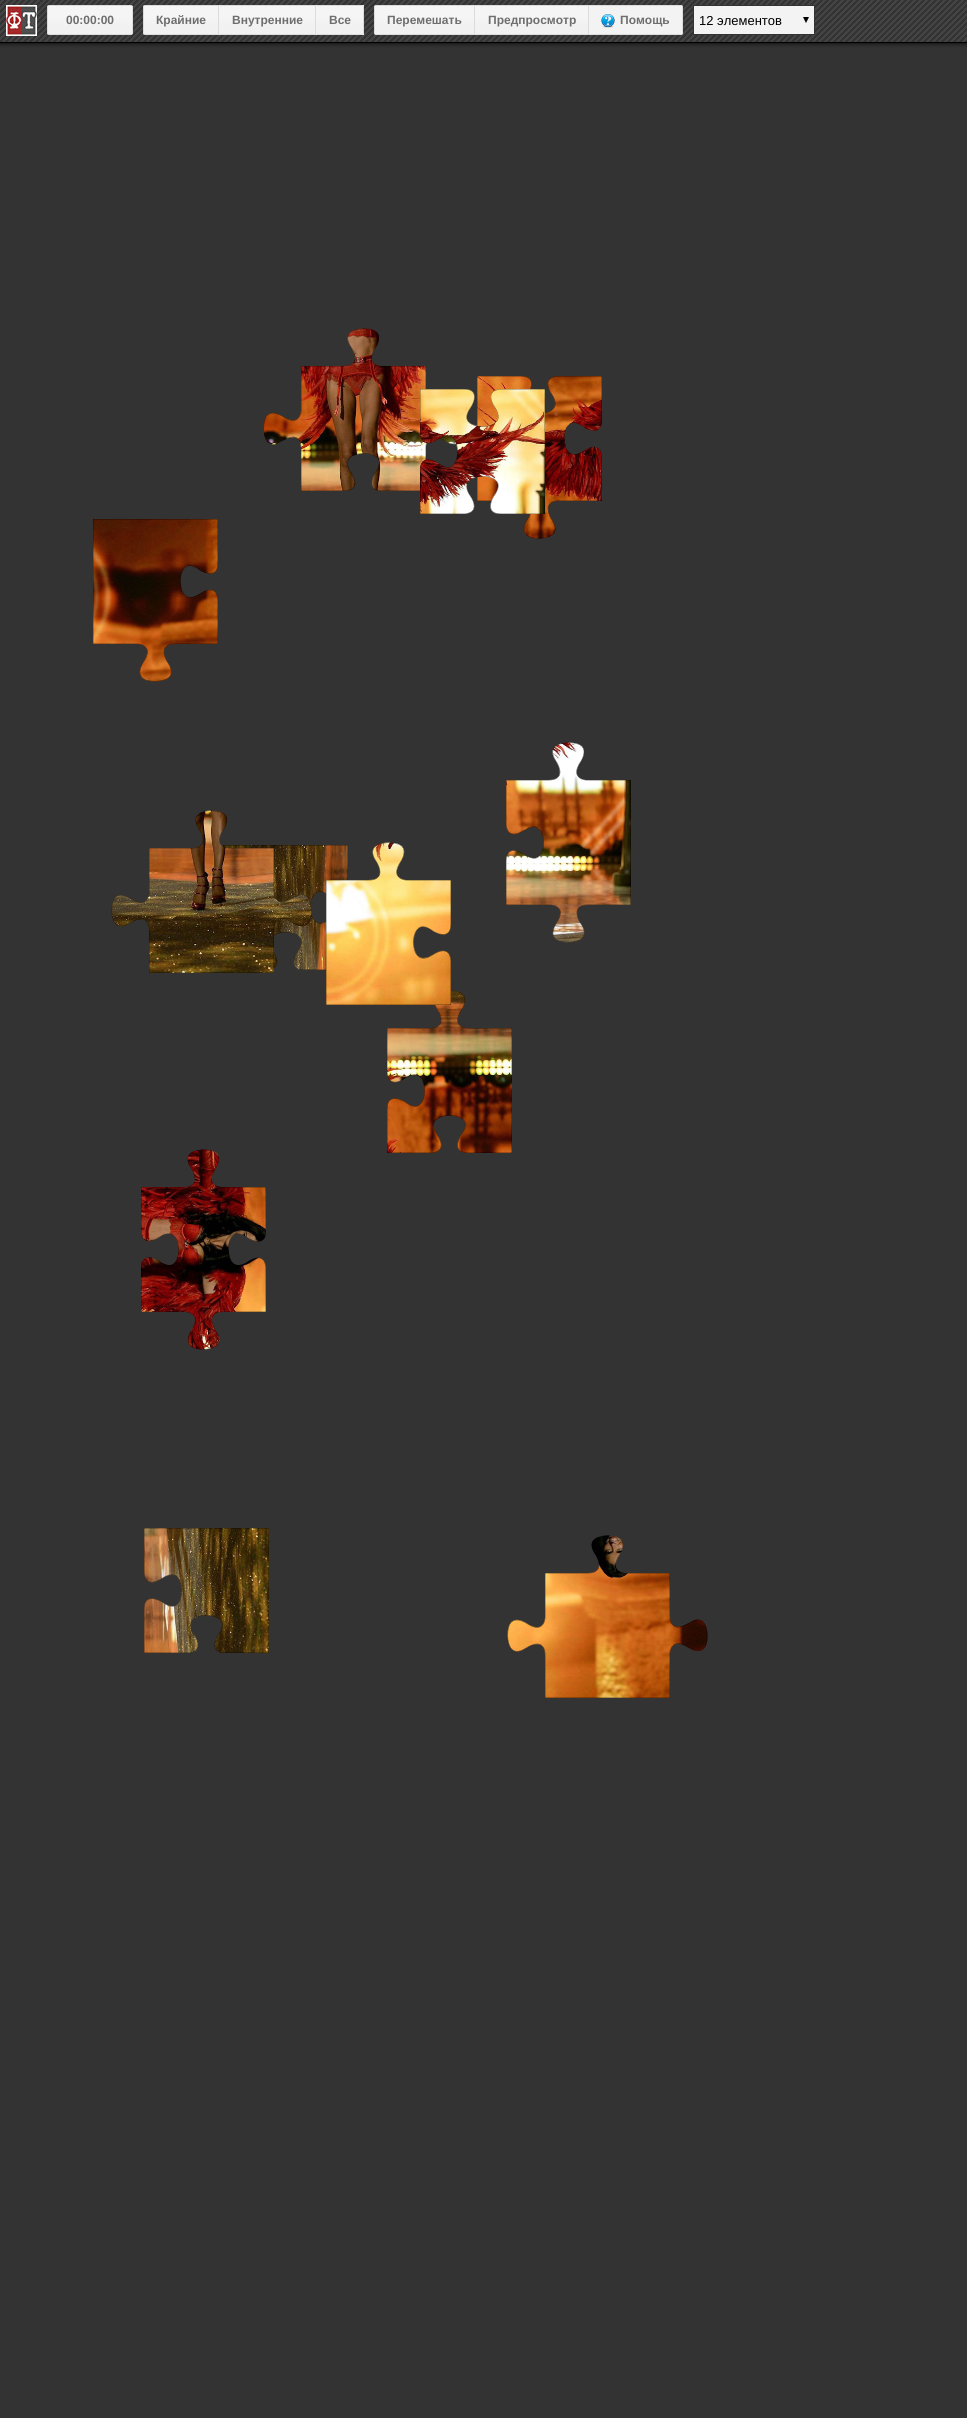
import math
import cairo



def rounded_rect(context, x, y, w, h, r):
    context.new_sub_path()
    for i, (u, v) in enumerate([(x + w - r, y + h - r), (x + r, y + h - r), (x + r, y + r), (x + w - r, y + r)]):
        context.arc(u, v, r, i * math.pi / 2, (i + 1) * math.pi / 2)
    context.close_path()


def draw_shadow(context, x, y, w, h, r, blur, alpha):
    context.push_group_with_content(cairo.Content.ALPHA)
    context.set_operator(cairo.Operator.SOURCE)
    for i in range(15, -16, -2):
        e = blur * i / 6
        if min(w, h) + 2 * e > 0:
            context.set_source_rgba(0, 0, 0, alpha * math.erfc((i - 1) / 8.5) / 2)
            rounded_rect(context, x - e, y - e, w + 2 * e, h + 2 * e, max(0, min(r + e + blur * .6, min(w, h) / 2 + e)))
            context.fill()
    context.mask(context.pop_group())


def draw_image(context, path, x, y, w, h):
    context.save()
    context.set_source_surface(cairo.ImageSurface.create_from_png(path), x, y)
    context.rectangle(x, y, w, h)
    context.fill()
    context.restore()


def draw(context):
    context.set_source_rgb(51 / 255, 51 / 255, 51 / 255)
    context.paint()
    context.set_source_rgb(0, 0, 0)
    draw_shadow(context, -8, 0, 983, 43, 0, 2.5, 1)
    draw_image(context, "images/1.png", 0, 0, 967, 42)
    context.set_source_rgb(0, 0, 0)
    context.rectangle(0, 42, 967, 1)
    context.fill()
    draw_image(context, "images/2.png", 6, 5, 31, 31)
    context.save()
    rounded_rect(context, 47, 5, 86, 30, 2)
    context.clip()
    gradient = cairo.LinearGradient(48, 17, 48, 26)
    gradient.add_color_stop_rgba(0, 245 / 255, 245 / 255, 245 / 255, 1)
    gradient.add_color_stop_rgba(1, 241 / 255, 241 / 255, 241 / 255, 1)
    context.set_source(gradient)
    context.rectangle(47, 6, 86, 28)
    context.fill()
    context.restore()
    rounded_rect(context, 47.5, 5.5, 85, 29, 1.5)
    context.set_source_rgb(220 / 255, 220 / 255, 220 / 255)
    context.set_line_width(1)
    context.stroke()
    gradient = cairo.LinearGradient(144, 17, 144, 26)
    gradient.add_color_stop_rgba(0, 245 / 255, 245 / 255, 245 / 255, 1)
    gradient.add_color_stop_rgba(1, 241 / 255, 241 / 255, 241 / 255, 1)
    context.set_source(gradient)
    context.rectangle(143, 6, 75, 28)
    context.fill()
    context.new_path()
    context.move_to(145, 5.5)
    context.line_to(218.5, 5.5)
    context.line_to(218.5, 34.5)
    context.line_to(145, 34.5)
    context.curve_to(144, 34.5, 143.5, 34, 143.5, 33)
    context.line_to(143.5, 7)
    context.curve_to(143.5, 6, 144, 5.5, 145, 5.5)
    context.close_path()
    context.set_source_rgb(220 / 255, 220 / 255, 220 / 255)
    context.stroke()
    gradient = cairo.LinearGradient(220, -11, 220, -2.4)
    gradient.add_color_stop_rgba(0, 245 / 255, 245 / 255, 245 / 255, 1)
    gradient.add_color_stop_rgba(1, 241 / 255, 241 / 255, 241 / 255, 1)
    context.set_source(gradient)
    context.rectangle(219, 5, 1, 1)
    context.fill()
    gradient = cairo.LinearGradient(220, 17, 220, 26)
    gradient.add_color_stop_rgba(0, 245 / 255, 245 / 255, 245 / 255, 1)
    gradient.add_color_stop_rgba(1, 241 / 255, 241 / 255, 241 / 255, 1)
    context.set_source(gradient)
    context.rectangle(219, 6, 96, 28)
    context.fill()
    gradient = cairo.LinearGradient(220, 45, 220, 54)
    gradient.add_color_stop_rgba(0, 245 / 255, 245 / 255, 245 / 255, 1)
    gradient.add_color_stop_rgba(1, 241 / 255, 241 / 255, 241 / 255, 1)
    context.set_source(gradient)
    context.rectangle(219, 34, 1, 1)
    context.fill()
    context.set_source_rgb(220 / 255, 220 / 255, 220 / 255)
    context.new_path()
    context.move_to(219, 5)
    context.line_to(316, 5)
    context.line_to(315, 6)
    context.line_to(220, 6)
    context.close_path()
    context.fill()
    context.rectangle(315, 5, 1, 30)
    context.fill()
    context.new_path()
    context.move_to(316, 35)
    context.line_to(219, 35)
    context.line_to(220, 34)
    context.line_to(315, 34)
    context.close_path()
    context.fill()
    gradient = cairo.LinearGradient(317, -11, 317, -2.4)
    gradient.add_color_stop_rgba(0, 245 / 255, 245 / 255, 245 / 255, 1)
    gradient.add_color_stop_rgba(1, 241 / 255, 241 / 255, 241 / 255, 1)
    context.set_source(gradient)
    context.rectangle(316, 5, 48, 1)
    context.fill()
    gradient = cairo.LinearGradient(317, 17, 317, 26)
    gradient.add_color_stop_rgba(0, 245 / 255, 245 / 255, 245 / 255, 1)
    gradient.add_color_stop_rgba(1, 241 / 255, 241 / 255, 241 / 255, 1)
    context.set_source(gradient)
    context.rectangle(316, 6, 48, 28)
    context.fill()
    gradient = cairo.LinearGradient(317, 45, 317, 54)
    gradient.add_color_stop_rgba(0, 245 / 255, 245 / 255, 245 / 255, 1)
    gradient.add_color_stop_rgba(1, 241 / 255, 241 / 255, 241 / 255, 1)
    context.set_source(gradient)
    context.rectangle(316, 34, 48, 1)
    context.fill()
    context.set_source_rgb(220 / 255, 220 / 255, 220 / 255)
    context.new_path()
    context.move_to(316, 5)
    context.line_to(317, 6)
    context.line_to(363, 6)
    context.line_to(362, 5)
    context.close_path()
    context.move_to(364, 33)
    context.line_to(364, 7)
    context.line_to(363.5, 5.5)
    context.line_to(363, 6)
    context.line_to(363, 34)
    context.line_to(363.5, 34.5)
    context.close_path()
    context.fill()
    context.new_path()
    context.move_to(362, 35)
    context.line_to(363, 34)
    context.line_to(317, 34)
    context.line_to(316, 35)
    context.close_path()
    context.fill()
    gradient = cairo.LinearGradient(375, 17, 375, 26)
    gradient.add_color_stop_rgba(0, 245 / 255, 245 / 255, 245 / 255, 1)
    gradient.add_color_stop_rgba(1, 241 / 255, 241 / 255, 241 / 255, 1)
    context.set_source(gradient)
    context.rectangle(374, 6, 100, 28)
    context.fill()
    context.new_path()
    context.move_to(376, 5.5)
    context.line_to(474.5, 5.5)
    context.line_to(474.5, 34.5)
    context.line_to(376, 34.5)
    context.curve_to(375, 34.5, 374.5, 34, 374.5, 33)
    context.line_to(374.5, 7)
    context.curve_to(374.5, 6, 375, 5.5, 376, 5.5)
    context.close_path()
    context.set_source_rgb(220 / 255, 220 / 255, 220 / 255)
    context.stroke()
    gradient = cairo.LinearGradient(476, -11, 476, -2.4)
    gradient.add_color_stop_rgba(0, 245 / 255, 245 / 255, 245 / 255, 1)
    gradient.add_color_stop_rgba(1, 241 / 255, 241 / 255, 241 / 255, 1)
    context.set_source(gradient)
    context.rectangle(475, 5, 1, 1)
    context.fill()
    gradient = cairo.LinearGradient(476, 17, 476, 26)
    gradient.add_color_stop_rgba(0, 245 / 255, 245 / 255, 245 / 255, 1)
    gradient.add_color_stop_rgba(1, 241 / 255, 241 / 255, 241 / 255, 1)
    context.set_source(gradient)
    context.rectangle(475, 6, 113, 28)
    context.fill()
    gradient = cairo.LinearGradient(476, 45, 476, 54)
    gradient.add_color_stop_rgba(0, 245 / 255, 245 / 255, 245 / 255, 1)
    gradient.add_color_stop_rgba(1, 241 / 255, 241 / 255, 241 / 255, 1)
    context.set_source(gradient)
    context.rectangle(475, 34, 1, 1)
    context.fill()
    context.set_source_rgb(220 / 255, 220 / 255, 220 / 255)
    context.new_path()
    context.move_to(475, 5)
    context.line_to(589, 5)
    context.line_to(588, 6)
    context.line_to(476, 6)
    context.close_path()
    context.fill()
    context.rectangle(588, 5, 1, 30)
    context.fill()
    context.new_path()
    context.move_to(589, 35)
    context.line_to(475, 35)
    context.line_to(476, 34)
    context.line_to(588, 34)
    context.close_path()
    context.fill()
    context.set_source_rgb(243 / 255, 243 / 255, 243 / 255)
    context.new_path()
    context.move_to(589, 5)
    context.line_to(681, 5)
    context.curve_to(682, 5, 683, 6, 683, 7)
    context.line_to(683, 33)
    context.curve_to(683, 34, 682, 35, 681, 35)
    context.line_to(589, 35)
    context.close_path()
    context.fill()
    draw_image(context, "images/3.png", 601, 14, 14, 14)
    context.set_source_rgb(220 / 255, 220 / 255, 220 / 255)
    context.new_path()
    context.move_to(589, 5)
    context.line_to(590, 6)
    context.line_to(682, 6)
    context.line_to(681, 5)
    context.close_path()
    context.fill()
    context.new_path()
    context.move_to(683, 33)
    context.line_to(683, 7)
    context.line_to(682.5, 5.5)
    context.line_to(682, 6)
    context.line_to(682, 34)
    context.line_to(682.5, 34.5)
    context.close_path()
    context.fill()
    context.new_path()
    context.move_to(681, 35)
    context.line_to(682, 34)
    context.line_to(590, 34)
    context.line_to(589, 35)
    context.close_path()
    context.fill()
    context.set_source_rgb(243 / 255, 243 / 255, 243 / 255)
    context.rectangle(694, 6, 120, 28)
    context.fill()
    draw_image(context, "images/4.png", 803, 17, 6, 6)
    context.rectangle(693.5, 5.5, 121, 29)
    context.set_source_rgb(51 / 255, 51 / 255, 51 / 255)
    context.stroke()
    draw_image(context, "images/5.png", 93, 328, 615, 1370)
    context.select_font_face("Liberation Sans", cairo.FontSlant.NORMAL, cairo.FontWeight.BOLD)
    context.set_font_size(12)
    context.set_source_rgb(110 / 255, 110 / 255, 110 / 255)
    context.move_to(66, 24)
    context.show_text("00:00:00")
    context.move_to(156, 24)
    context.show_text("Крайние")
    context.move_to(232, 24)
    context.show_text("Внутренние")
    context.move_to(329, 24)
    context.show_text("Все")
    context.move_to(387, 24)
    context.show_text("Перемешать")
    context.move_to(488, 24)
    context.show_text("Предпросмотр")
    context.move_to(620, 24)
    context.show_text("Помощь")
    context.select_font_face("Liberation Sans")
    context.set_font_size(13)
    context.set_source_rgb(0, 0, 0)
    context.move_to(699, 25)
    context.show_text("12 элементов")


surface = cairo.ImageSurface(cairo.Format.RGB24, 967, 2418)
context = cairo.Context(surface)
options = cairo.FontOptions()
options.set_hint_metrics(cairo.HintMetrics.OFF)
options.set_hint_style(cairo.HintStyle.NONE)
context.set_font_options(options)
context.set_miter_limit(4)
draw(context)
surface.write_to_png("out.png")
